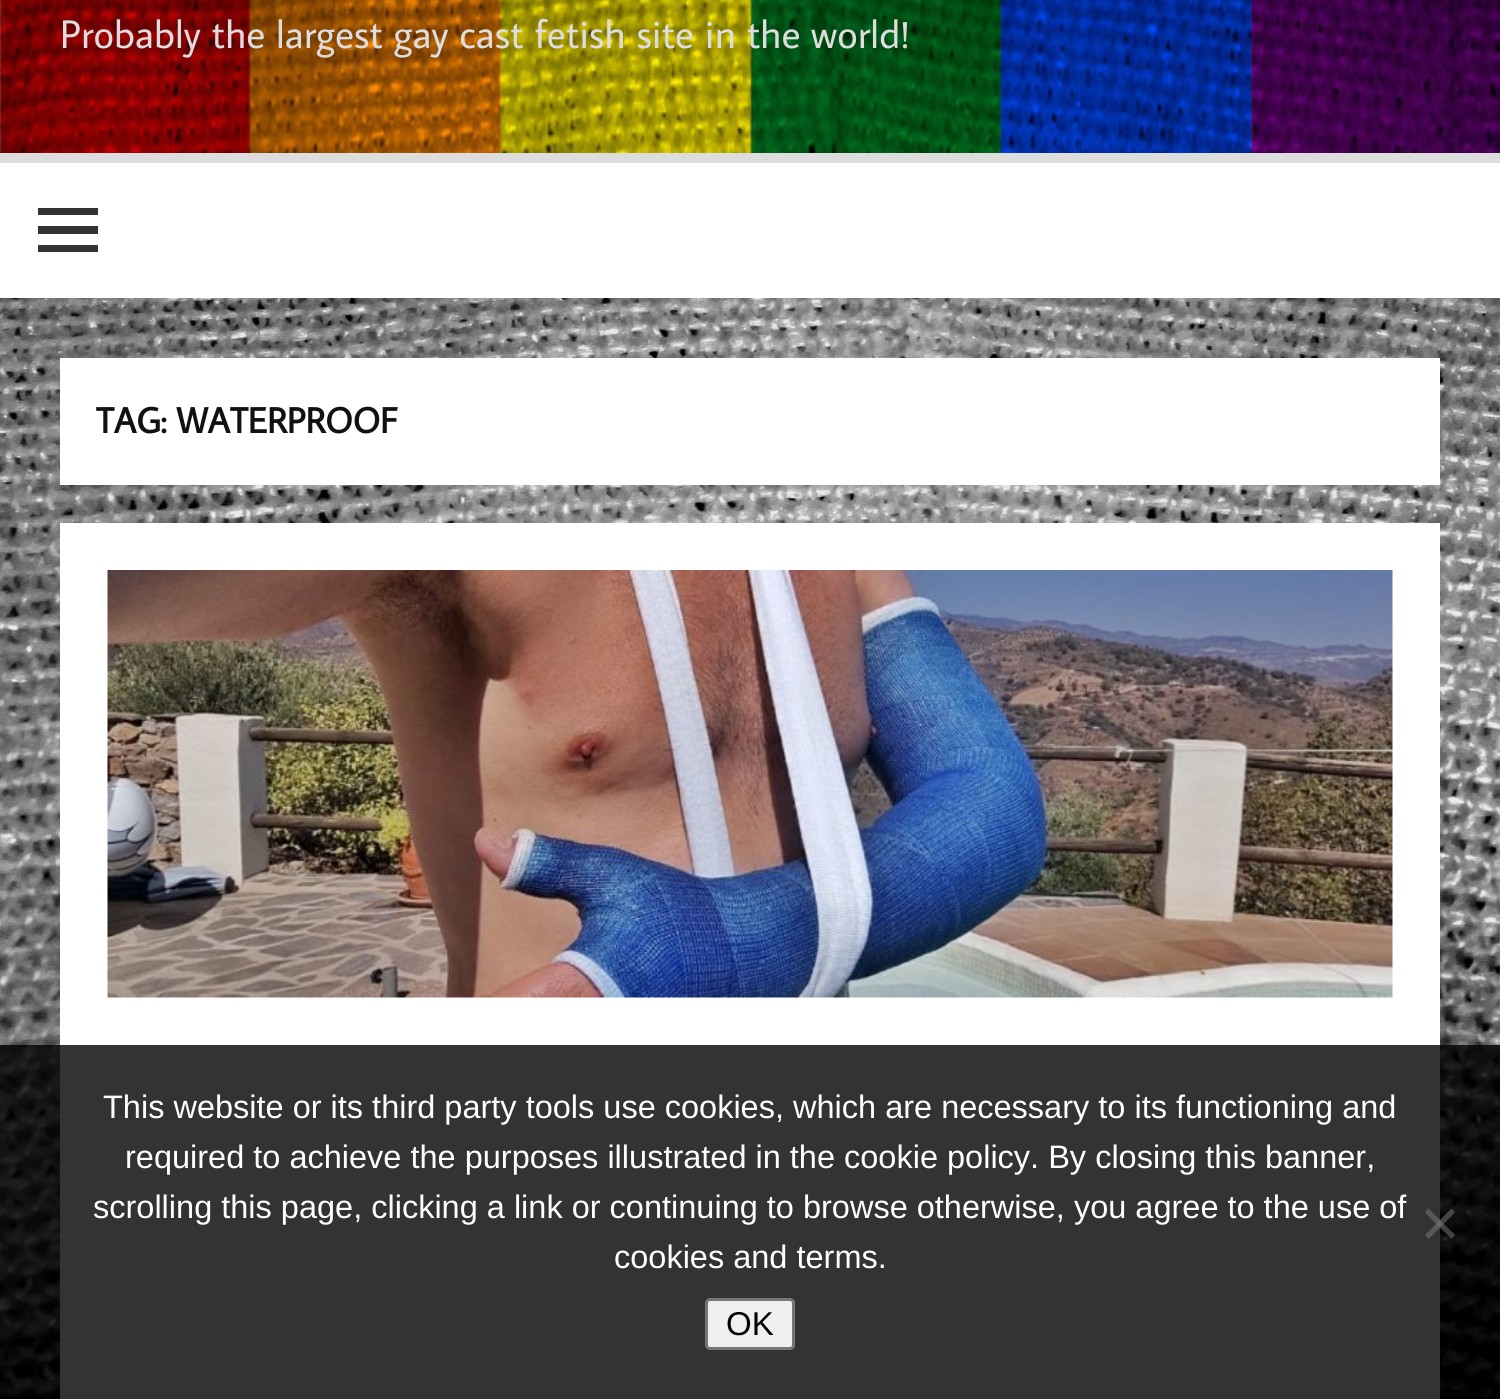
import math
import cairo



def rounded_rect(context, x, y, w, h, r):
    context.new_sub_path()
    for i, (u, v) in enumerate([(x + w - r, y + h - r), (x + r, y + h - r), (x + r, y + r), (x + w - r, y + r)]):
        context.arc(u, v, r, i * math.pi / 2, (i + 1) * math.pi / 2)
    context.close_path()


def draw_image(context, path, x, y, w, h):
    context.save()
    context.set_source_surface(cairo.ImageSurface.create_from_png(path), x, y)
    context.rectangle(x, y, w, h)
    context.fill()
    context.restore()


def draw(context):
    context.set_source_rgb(1, 1, 1)
    context.paint()
    draw_image(context, "images/1.png", 0, 298, 1500, 1101)
    draw_image(context, "images/2.png", 0, 0, 1500, 153)
    context.set_source_rgb(221 / 255, 221 / 255, 221 / 255)
    context.rectangle(0, 153, 1500, 10)
    context.fill()
    context.set_source_rgb(51 / 255, 51 / 255, 51 / 255)
    context.new_path()
    context.move_to(38, 252)
    context.line_to(38, 245)
    context.line_to(98, 245)
    context.line_to(98, 252)
    context.close_path()
    context.move_to(38, 208)
    context.line_to(98, 208)
    context.line_to(98, 215)
    context.line_to(38, 215)
    context.close_path()
    context.move_to(38, 234)
    context.line_to(38, 226)
    context.line_to(98, 226)
    context.line_to(98, 234)
    context.close_path()
    context.fill()
    context.set_source_rgb(1, 1, 1)
    context.rectangle(60, 358, 1380, 127)
    context.fill()
    context.rectangle(60, 523, 1380, 876)
    context.fill()
    draw_image(context, "images/3.png", 107, 570, 1286, 428)
    context.set_source_rgba(0, 0, 0, 0.8)
    context.rectangle(0, 1045, 1500, 354)
    context.fill()
    context.set_source_rgba(128 / 255, 128 / 255, 128 / 255, 0.5)
    context.new_path()
    context.move_to(1451.5, 1208.5)
    context.line_to(1455, 1212.5)
    context.line_to(1428.5, 1239)
    context.line_to(1425, 1235)
    context.close_path()
    context.fill()
    context.new_path()
    context.move_to(1425, 1212.5)
    context.line_to(1428.5, 1208.5)
    context.line_to(1455, 1235)
    context.line_to(1451.5, 1239)
    context.close_path()
    context.fill()
    context.set_source_rgb(239 / 255, 239 / 255, 239 / 255)
    rounded_rect(context, 706.5, 1299.5, 87, 49, 3.5)
    context.fill_preserve()
    context.set_source_rgb(118 / 255, 118 / 255, 118 / 255)
    context.set_line_width(3)
    context.stroke()
    context.select_font_face("Average Sans")
    context.set_font_size(40)
    context.set_source_rgb(221 / 255, 221 / 255, 221 / 255)
    context.move_to(60, 48)
    context.show_text("Probably the largest gay cast fetish site in the world!")
    context.select_font_face("Average Sans", cairo.FontSlant.NORMAL, cairo.FontWeight.BOLD)
    context.set_font_size(36)
    context.set_source_rgb(17 / 255, 17 / 255, 17 / 255)
    context.move_to(96, 433)
    context.show_text("TAG: WATERPROOF")
    context.select_font_face("Liberation Sans")
    context.set_font_size(32.5)
    context.set_source_rgb(1, 1, 1)
    context.move_to(103, 1118)
    context.show_text("This website or its third party tools use cookies, which are necessary to its functioning and")
    context.move_to(125, 1168)
    context.show_text("required to achieve the purposes illustrated in the cookie policy. By closing this banner,")
    context.move_to(93, 1218)
    context.show_text("scrolling this page, clicking a link or continuing to browse otherwise, you agree to the use of")
    context.move_to(614, 1268)
    context.show_text("cookies and terms.")
    context.set_font_size(33)
    context.set_source_rgb(0, 0, 0)
    context.move_to(726, 1335)
    context.show_text("OK")


surface = cairo.ImageSurface(cairo.Format.RGB24, 1500, 1399)
context = cairo.Context(surface)
options = cairo.FontOptions()
options.set_hint_metrics(cairo.HintMetrics.OFF)
options.set_hint_style(cairo.HintStyle.NONE)
context.set_font_options(options)
context.set_miter_limit(4)
draw(context)
surface.write_to_png("out.png")
